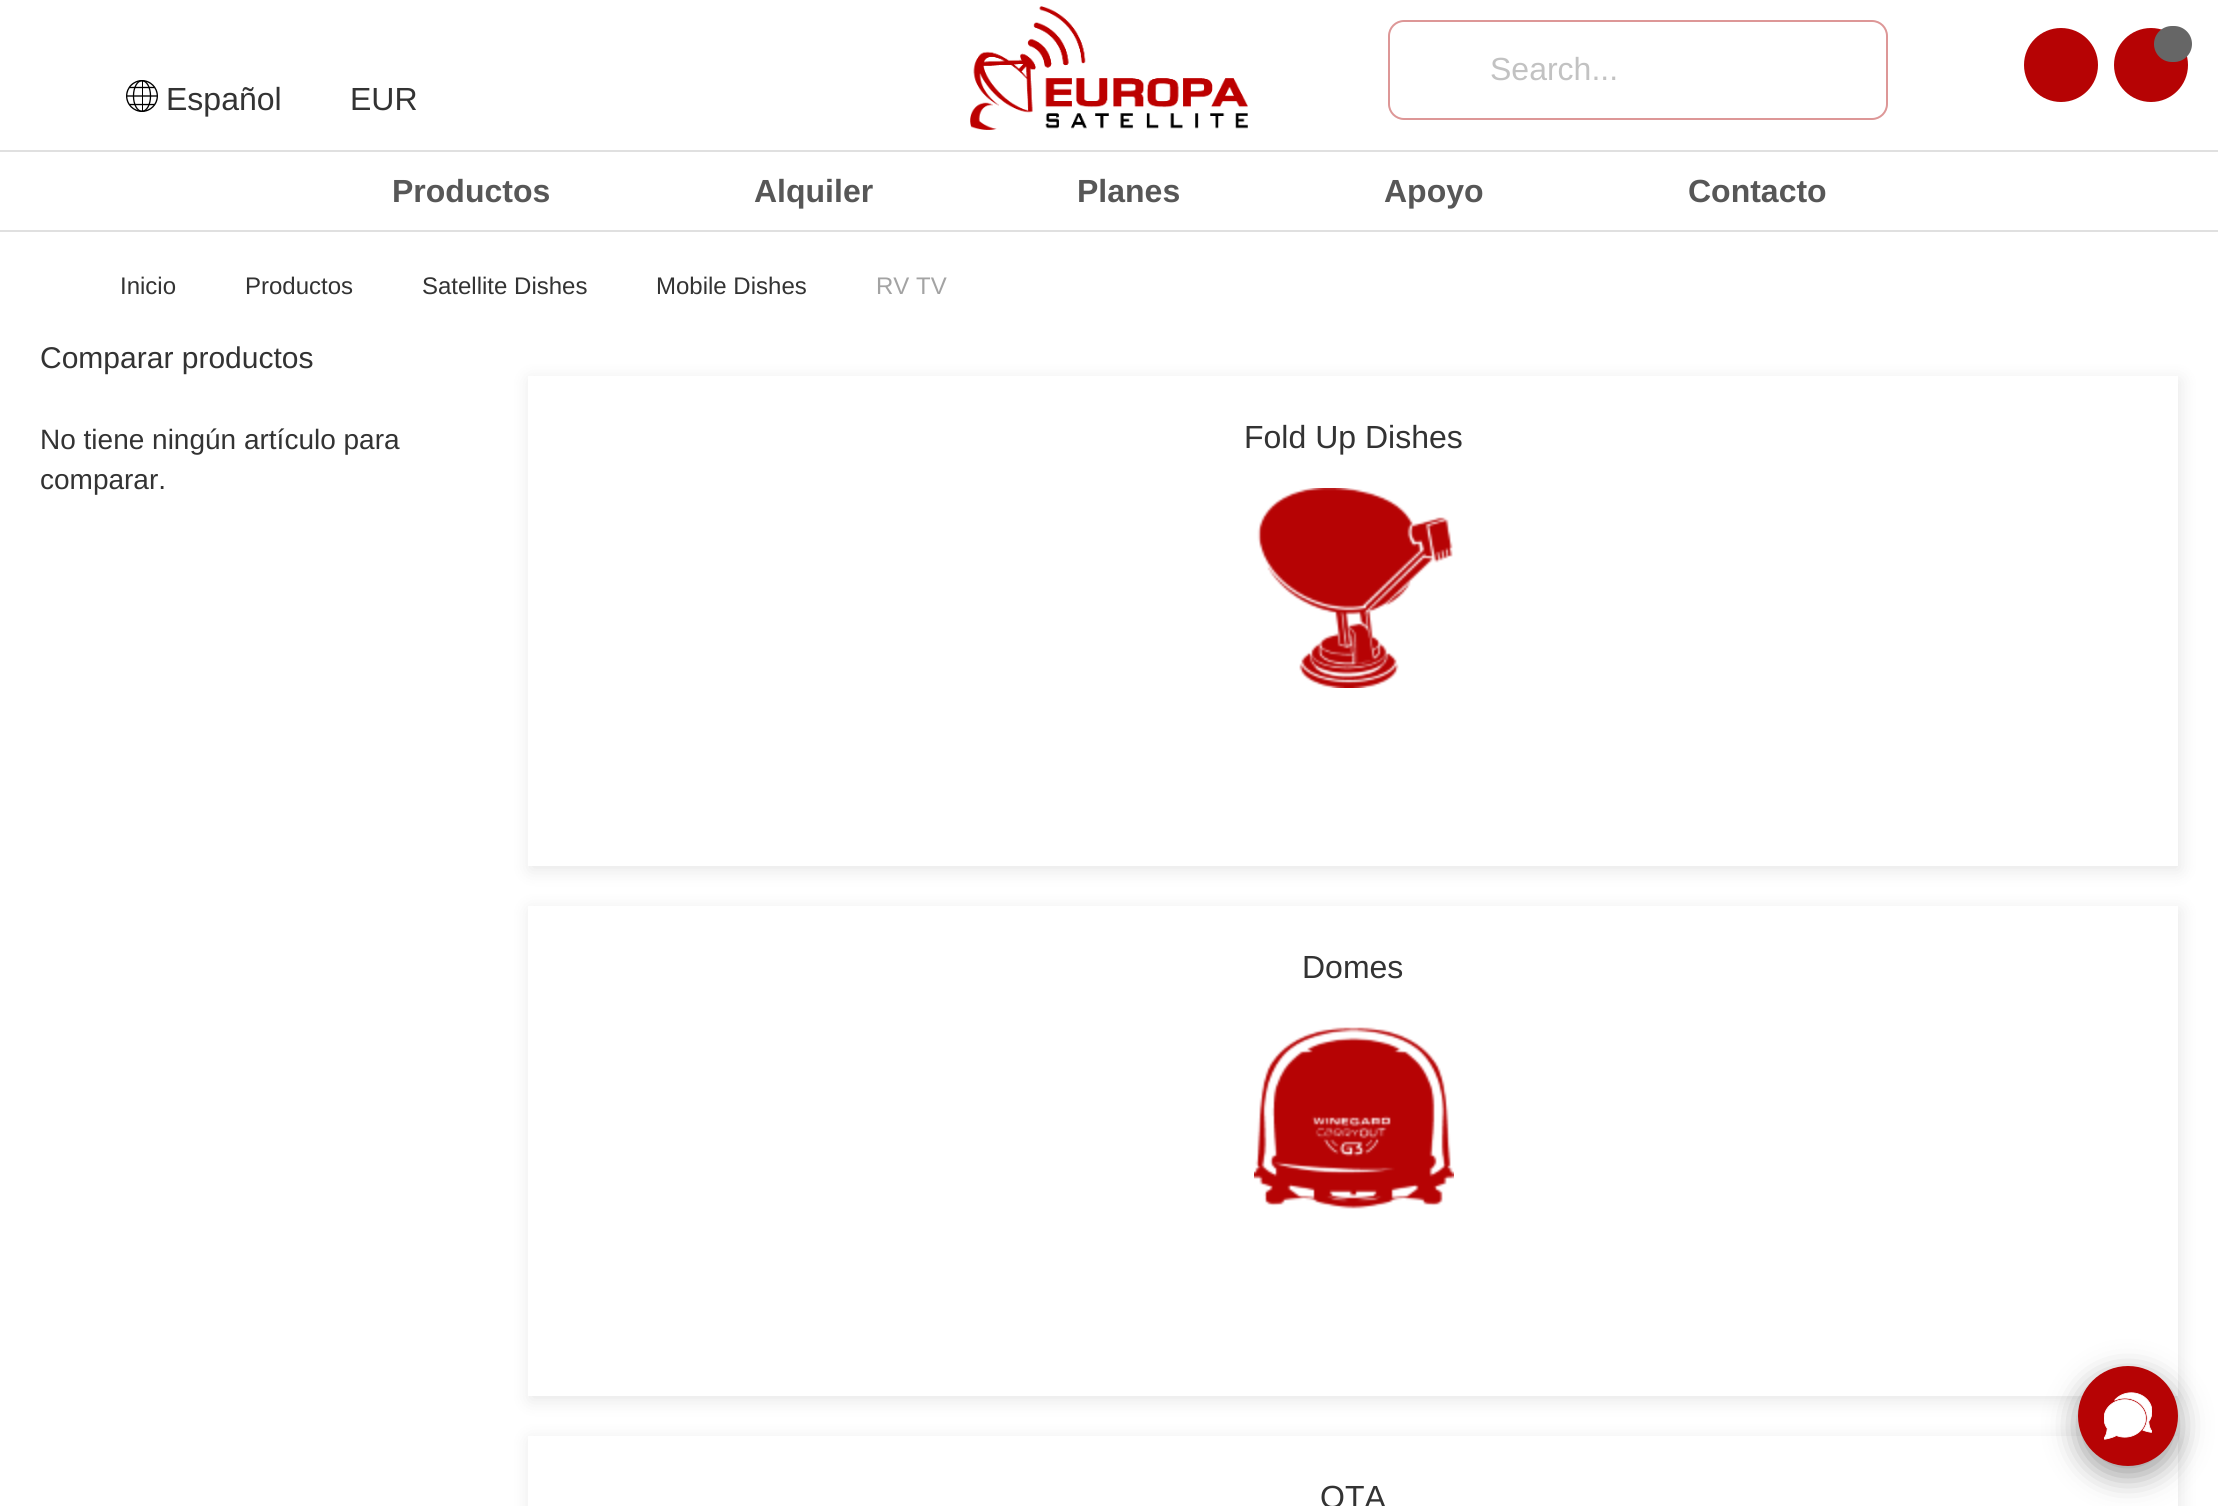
import math
import cairo



def rounded_rect(context, x, y, w, h, r):
    context.new_sub_path()
    for i, (u, v) in enumerate([(x + w - r, y + h - r), (x + r, y + h - r), (x + r, y + r), (x + w - r, y + r)]):
        context.arc(u, v, r, i * math.pi / 2, (i + 1) * math.pi / 2)
    context.close_path()


def draw_shadow(context, x, y, w, h, r, blur, alpha):
    context.push_group_with_content(cairo.Content.ALPHA)
    context.set_operator(cairo.Operator.SOURCE)
    for i in range(15, -16, -2):
        e = blur * i / 6
        if min(w, h) + 2 * e > 0:
            context.set_source_rgba(0, 0, 0, alpha * math.erfc((i - 1) / 8.5) / 2)
            rounded_rect(context, x - e, y - e, w + 2 * e, h + 2 * e, max(0, min(r + e + blur * .6, min(w, h) / 2 + e)))
            context.fill()
    context.mask(context.pop_group())


def draw_image(context, path, x, y, w, h):
    context.save()
    context.set_source_surface(cairo.ImageSurface.create_from_png(path), x, y)
    context.rectangle(x, y, w, h)
    context.fill()
    context.restore()


def draw(context):
    context.set_source_rgb(1, 1, 1)
    context.paint()
    draw_image(context, "images/1.png", 970, 6, 278, 124)
    rounded_rect(context, 1389, 21, 498, 98, 15)
    context.set_source_rgb(221 / 255, 151 / 255, 151 / 255)
    context.stroke()
    context.set_source_rgb(182 / 255, 3 / 255, 4 / 255)
    context.arc(2061, 65, 37, 0, 2 * math.pi)
    context.fill()
    context.arc(2151, 65, 37, 0, 2 * math.pi)
    context.fill()
    context.set_source_rgb(102 / 255, 102 / 255, 102 / 255)
    rounded_rect(context, 2154, 26, 38, 36, 18)
    context.fill()
    draw_image(context, "images/2.png", 126, 80, 32, 32)
    context.set_source_rgb(224 / 255, 224 / 255, 224 / 255)
    context.rectangle(0, 150, 2218, 2)
    context.fill()
    context.rectangle(0, 230, 2218, 2)
    context.fill()
    context.save()
    context.set_fill_rule(cairo.FillRule.EVEN_ODD)
    context.new_path()
    context.move_to(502, 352)
    context.line_to(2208, 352)
    context.line_to(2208, 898)
    context.line_to(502, 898)
    context.close_path()
    context.move_to(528, 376)
    context.line_to(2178, 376)
    context.line_to(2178, 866)
    context.line_to(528, 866)
    context.close_path()
    context.clip()
    context.set_source_rgb(0, 0, 0)
    draw_shadow(context, 530, 380, 1650, 490, 0, 9, 0.1)
    context.restore()
    draw_image(context, "images/3.png", 1257, 488, 196, 200)
    context.save()
    context.set_fill_rule(cairo.FillRule.EVEN_ODD)
    context.new_path()
    context.move_to(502, 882)
    context.line_to(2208, 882)
    context.line_to(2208, 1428)
    context.line_to(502, 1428)
    context.close_path()
    context.move_to(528, 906)
    context.line_to(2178, 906)
    context.line_to(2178, 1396)
    context.line_to(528, 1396)
    context.close_path()
    context.clip()
    context.set_source_rgb(0, 0, 0)
    draw_shadow(context, 530, 910, 1650, 490, 0, 9, 0.1)
    context.restore()
    draw_image(context, "images/4.png", 1254, 1027, 200, 182)
    context.save()
    context.set_fill_rule(cairo.FillRule.EVEN_ODD)
    context.new_path()
    context.move_to(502, 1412)
    context.line_to(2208, 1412)
    context.line_to(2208, 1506)
    context.line_to(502, 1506)
    context.close_path()
    context.move_to(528, 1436)
    context.line_to(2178, 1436)
    context.line_to(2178, 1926)
    context.line_to(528, 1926)
    context.close_path()
    context.clip()
    context.set_source_rgb(0, 0, 0)
    draw_shadow(context, 530, 1440, 1650, 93, 0, 9, 0.1)
    context.restore()
    context.set_source_rgb(0, 0, 0)
    draw_shadow(context, 2078, 1376, 100, 100, 50, 15, 0.4)
    context.set_source_rgb(182 / 255, 3 / 255, 4 / 255)
    context.arc(2128, 1416, 50, 0, 2 * math.pi)
    context.fill()
    draw_image(context, "images/5.png", 2104, 1392, 48, 48)
    context.select_font_face("Liberation Sans")
    context.set_font_size(32)
    context.set_source_rgb(194 / 255, 194 / 255, 194 / 255)
    context.move_to(1490, 80)
    context.show_text("Search...")
    context.set_source_rgb(51 / 255, 51 / 255, 51 / 255)
    context.move_to(166, 110)
    context.show_text("Español")
    context.move_to(350, 110)
    context.show_text("EUR")
    context.select_font_face("Liberation Sans", cairo.FontSlant.NORMAL, cairo.FontWeight.BOLD)
    context.set_source_rgb(87 / 255, 87 / 255, 87 / 255)
    context.move_to(392, 202)
    context.show_text("Productos")
    context.move_to(754, 202)
    context.show_text("Alquiler")
    context.move_to(1077, 202)
    context.show_text("Planes")
    context.move_to(1384, 202)
    context.show_text("Apoyo")
    context.move_to(1688, 202)
    context.show_text("Contacto")
    context.select_font_face("Liberation Sans")
    context.set_font_size(24)
    context.set_source_rgb(51 / 255, 51 / 255, 51 / 255)
    context.move_to(120, 294)
    context.show_text("Inicio")
    context.move_to(245, 294)
    context.show_text("Productos")
    context.move_to(422, 294)
    context.show_text("Satellite Dishes")
    context.move_to(656, 294)
    context.show_text("Mobile Dishes")
    context.set_source_rgb(163 / 255, 163 / 255, 163 / 255)
    context.move_to(876, 294)
    context.show_text("RV TV")
    context.set_font_size(30)
    context.set_source_rgb(51 / 255, 51 / 255, 51 / 255)
    context.move_to(40, 368)
    context.show_text("Comparar productos")
    context.set_font_size(28)
    context.move_to(40, 449)
    context.show_text("No tiene ningún artículo para")
    context.move_to(40, 489)
    context.show_text("comparar.")
    context.set_font_size(32)
    context.move_to(1244, 448)
    context.show_text("Fold Up Dishes")
    context.move_to(1302, 978)
    context.show_text("Domes")
    context.move_to(1320, 1508)
    context.show_text("OTA")


surface = cairo.ImageSurface(cairo.Format.RGB24, 2218, 1506)
context = cairo.Context(surface)
options = cairo.FontOptions()
options.set_hint_metrics(cairo.HintMetrics.OFF)
options.set_hint_style(cairo.HintStyle.NONE)
context.set_font_options(options)
context.set_miter_limit(4)
draw(context)
surface.write_to_png("out.png")
